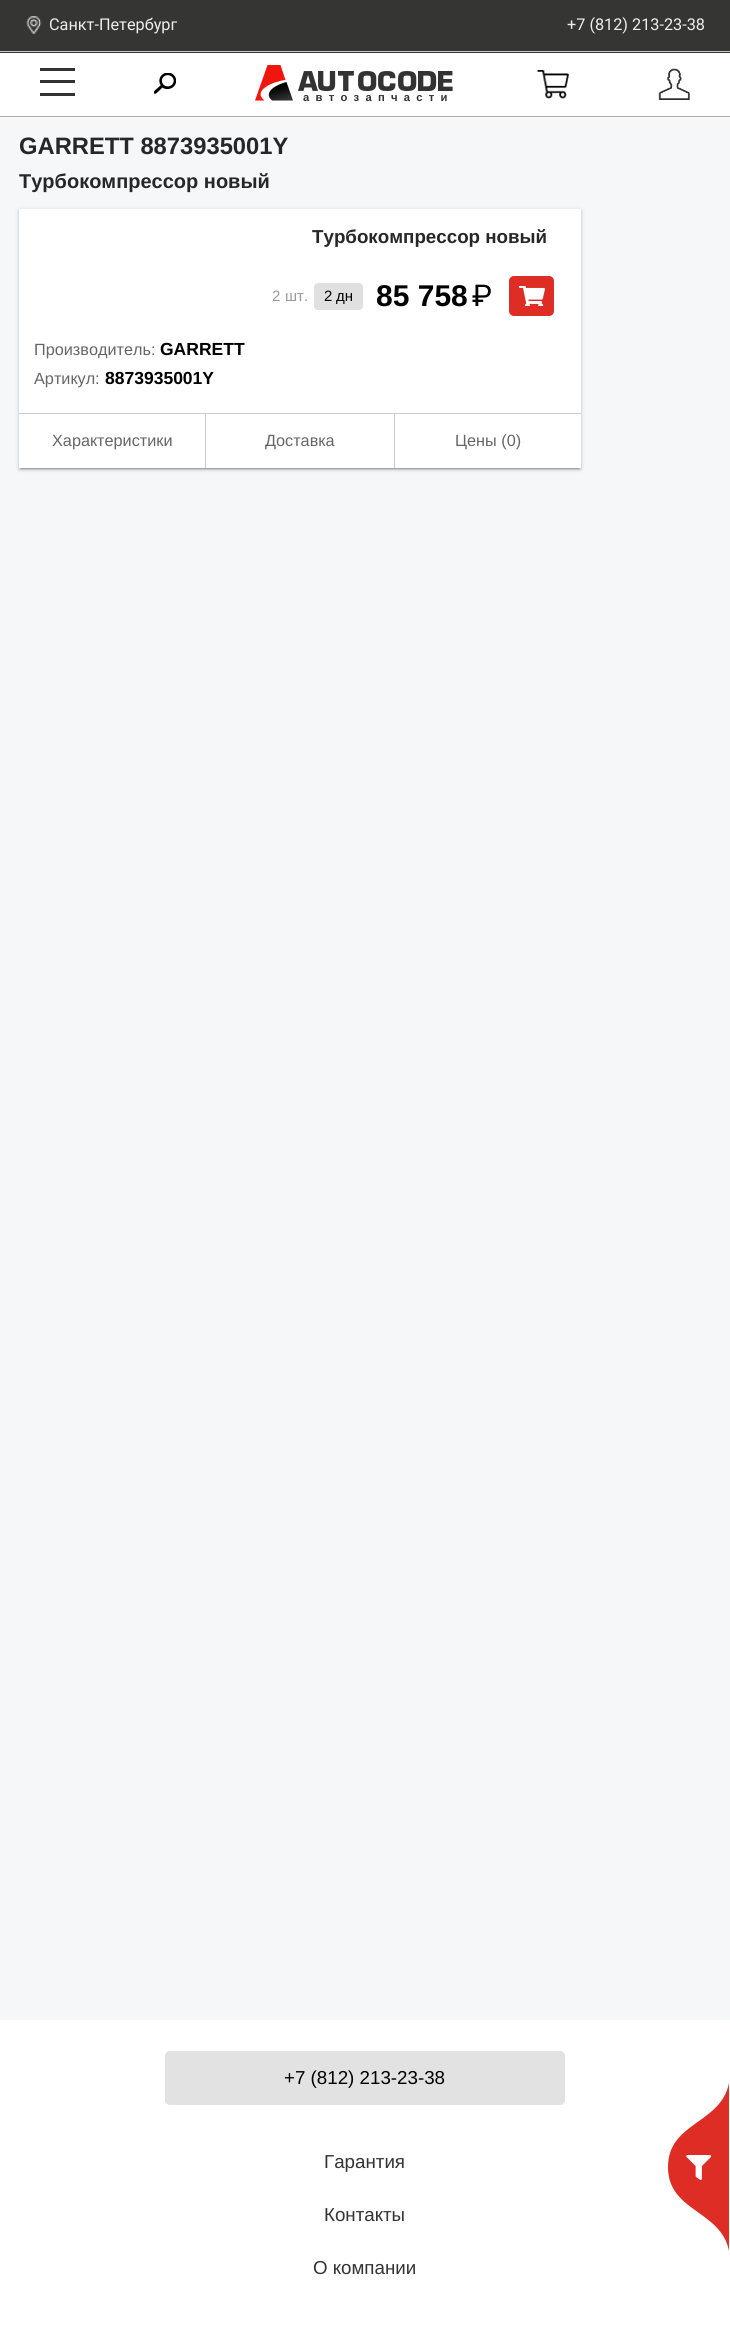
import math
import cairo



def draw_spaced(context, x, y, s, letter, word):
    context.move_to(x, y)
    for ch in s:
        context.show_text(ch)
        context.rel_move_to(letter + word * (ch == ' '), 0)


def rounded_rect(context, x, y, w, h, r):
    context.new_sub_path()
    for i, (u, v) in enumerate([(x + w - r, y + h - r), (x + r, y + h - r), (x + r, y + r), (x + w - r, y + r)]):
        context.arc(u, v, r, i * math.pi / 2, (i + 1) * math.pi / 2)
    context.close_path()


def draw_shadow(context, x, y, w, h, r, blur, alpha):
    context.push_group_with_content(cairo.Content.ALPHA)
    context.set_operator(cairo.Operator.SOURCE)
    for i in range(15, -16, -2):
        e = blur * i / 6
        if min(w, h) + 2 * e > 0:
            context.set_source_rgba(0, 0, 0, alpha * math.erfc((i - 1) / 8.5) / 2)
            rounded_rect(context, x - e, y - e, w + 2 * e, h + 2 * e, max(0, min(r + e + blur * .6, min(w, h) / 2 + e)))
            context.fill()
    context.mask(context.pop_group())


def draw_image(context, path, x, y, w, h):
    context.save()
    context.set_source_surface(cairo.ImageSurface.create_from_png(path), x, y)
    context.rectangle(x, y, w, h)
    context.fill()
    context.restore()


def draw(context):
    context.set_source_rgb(245 / 255, 247 / 255, 249 / 255)
    context.paint()
    context.set_source_rgb(53 / 255, 53 / 255, 52 / 255)
    context.rectangle(0, 0, 730, 53)
    context.fill()
    context.set_source_rgb(204 / 255, 204 / 255, 204 / 255)
    context.rectangle(0, 51, 730, 1)
    context.fill()
    draw_image(context, "images/1.png", 26, 16, 16, 18)
    context.set_source_rgb(1, 1, 1)
    context.rectangle(0, 53, 730, 65)
    context.fill()
    context.set_source_rgb(170 / 255, 170 / 255, 170 / 255)
    context.rectangle(0, 116, 730, 1)
    context.fill()
    context.set_source_rgb(51 / 255, 51 / 255, 51 / 255)
    context.rectangle(40, 68, 35, 3)
    context.fill()
    context.rectangle(40, 80, 35, 3)
    context.fill()
    context.rectangle(40, 93, 35, 3)
    context.fill()
    draw_image(context, "images/2.png", 154, 73, 22, 21)
    gradient = cairo.LinearGradient(282, 101, 278, 87)
    gradient.add_color_stop_rgba(0, 52 / 255, 52 / 255, 52 / 255, 1)
    gradient.add_color_stop_rgba(1, 0, 0, 0, 1)
    context.set_source(gradient)
    context.new_path()
    context.move_to(286.5, 82)
    context.line_to(293, 100.5)
    context.line_to(272, 100.5)
    context.curve_to(262, 92, 277.5, 84, 286.5, 82)
    context.close_path()
    context.fill()
    context.set_source_rgb(240 / 255, 21 / 255, 13 / 255)
    context.new_path()
    context.move_to(267.5, 65)
    context.line_to(280.5, 65)
    context.line_to(285.5, 80)
    context.curve_to(274, 81, 251.5, 90.5, 264.5, 100.5)
    context.line_to(255, 100.5)
    context.close_path()
    context.fill()
    draw_image(context, "images/3.png", 537, 70, 32, 29)
    draw_image(context, "images/4.png", 658, 68, 32, 32)
    context.set_source_rgb(0, 0, 0)
    draw_shadow(context, 21, 215, 558, 254, 0, 0.5, 0.2)
    draw_shadow(context, 19, 210, 562, 259, 0, 3, 0.12)
    draw_shadow(context, 19, 211, 562, 259, 0, 1, 0.14)
    context.set_source_rgb(1, 1, 1)
    context.rectangle(19, 209, 562, 259)
    context.fill()
    context.set_source_rgb(224 / 255, 224 / 255, 224 / 255)
    rounded_rect(context, 314, 283, 49, 27, 4)
    context.fill()
    context.set_source_rgb(221 / 255, 45 / 255, 36 / 255)
    rounded_rect(context, 509, 276, 45, 40, 5)
    context.fill()
    draw_image(context, "images/5.png", 519, 286, 26, 20)
    context.set_source_rgb(204 / 255, 204 / 255, 204 / 255)
    context.rectangle(19, 413, 562, 1)
    context.fill()
    context.rectangle(205, 414, 1, 54)
    context.fill()
    context.rectangle(394, 414, 1, 54)
    context.fill()
    context.set_source_rgb(1, 1, 1)
    context.rectangle(0, 2020, 730, 306)
    context.fill()
    context.set_source_rgb(221 / 255, 45 / 255, 36 / 255)
    context.new_path()
    context.move_to(668, 2167)
    context.curve_to(668, 2212, 721, 2210, 729, 2251)
    context.line_to(729, 2083)
    context.curve_to(721, 2124, 668, 2122, 668, 2167)
    context.close_path()
    context.fill()
    draw_image(context, "images/6.png", 686, 2155, 25, 25)
    context.set_source_rgb(226 / 255, 226 / 255, 226 / 255)
    rounded_rect(context, 165, 2051, 400, 54, 5)
    context.fill()
    context.select_font_face("Roboto")
    context.set_font_size(16.25)
    context.set_source_rgb(238 / 255, 238 / 255, 238 / 255)
    context.move_to(49, 30)
    context.show_text("Санкт-Петербург")
    context.move_to(567, 30)
    context.show_text("+7 (812) 213-23-38")
    context.select_font_face("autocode")
    context.set_font_size(20)
    context.set_source_rgb(51 / 255, 51 / 255, 51 / 255)
    context.move_to(298, 91)
    context.show_text("AUTOCODE")
    context.select_font_face("Liberation Sans", cairo.FontSlant.NORMAL, cairo.FontWeight.BOLD)
    context.set_font_size(11.25)
    draw_spaced(context, 303, 101, "автозапчасти", 6.25, 0)
    context.set_font_size(23.75)
    context.set_source_rgb(39 / 255, 39 / 255, 39 / 255)
    context.move_to(19, 154)
    context.show_text("GARRETT 8873935001Y")
    context.set_font_size(20)
    context.move_to(19, 188)
    context.show_text("Турбокомпрессор новый")
    context.set_font_size(18.75)
    context.move_to(312, 243)
    context.show_text("Турбокомпрессор новый")
    context.select_font_face("Liberation Sans")
    context.set_font_size(15)
    context.set_source_rgb(153 / 255, 153 / 255, 153 / 255)
    context.move_to(272, 301)
    context.show_text("2")
    context.move_to(285, 301)
    context.show_text("шт.")
    context.set_source_rgb(0, 0, 0)
    context.move_to(324, 301)
    context.show_text("2")
    context.move_to(336, 301)
    context.show_text("дн")
    context.select_font_face("Liberation Sans", cairo.FontSlant.NORMAL, cairo.FontWeight.BOLD)
    context.set_font_size(30)
    context.move_to(376, 306)
    context.show_text("85 758")
    context.select_font_face("Roboto")
    context.move_to(472, 306)
    context.show_text("₽")
    context.select_font_face("Liberation Sans")
    context.set_font_size(16.25)
    context.set_source_rgb(102 / 255, 102 / 255, 102 / 255)
    context.move_to(34, 355)
    context.show_text("Производитель:")
    context.select_font_face("Liberation Sans", cairo.FontSlant.NORMAL, cairo.FontWeight.BOLD)
    context.set_font_size(17.5)
    context.set_source_rgb(0, 0, 0)
    context.move_to(160, 355)
    context.show_text("GARRETT")
    context.select_font_face("Liberation Sans")
    context.set_font_size(16.25)
    context.set_source_rgb(102 / 255, 102 / 255, 102 / 255)
    context.move_to(34, 384)
    context.show_text("Артикул:")
    context.select_font_face("Liberation Sans", cairo.FontSlant.NORMAL, cairo.FontWeight.BOLD)
    context.set_font_size(17.5)
    context.set_source_rgb(0, 0, 0)
    context.move_to(105, 384)
    context.show_text("8873935001Y")
    context.select_font_face("Liberation Sans")
    context.set_font_size(16.25)
    context.set_source_rgb(102 / 255, 102 / 255, 102 / 255)
    context.move_to(52, 446)
    context.show_text("Характеристики")
    context.move_to(265, 446)
    context.show_text("Доставка")
    context.move_to(455, 446)
    context.show_text("Цены (0)")
    context.set_font_size(18.75)
    context.set_source_rgb(0, 0, 0)
    context.move_to(284, 2084)
    context.show_text("+7 (812) 213-23-38")
    context.set_source_rgb(51 / 255, 51 / 255, 51 / 255)
    context.move_to(324, 2168)
    context.show_text("Гарантия")
    context.move_to(324, 2221)
    context.show_text("Контакты")
    context.move_to(313, 2274)
    context.show_text("О компании")


surface = cairo.ImageSurface(cairo.Format.RGB24, 730, 2326)
context = cairo.Context(surface)
options = cairo.FontOptions()
options.set_hint_metrics(cairo.HintMetrics.OFF)
options.set_hint_style(cairo.HintStyle.NONE)
context.set_font_options(options)
context.set_miter_limit(4)
draw(context)
surface.write_to_png("out.png")
